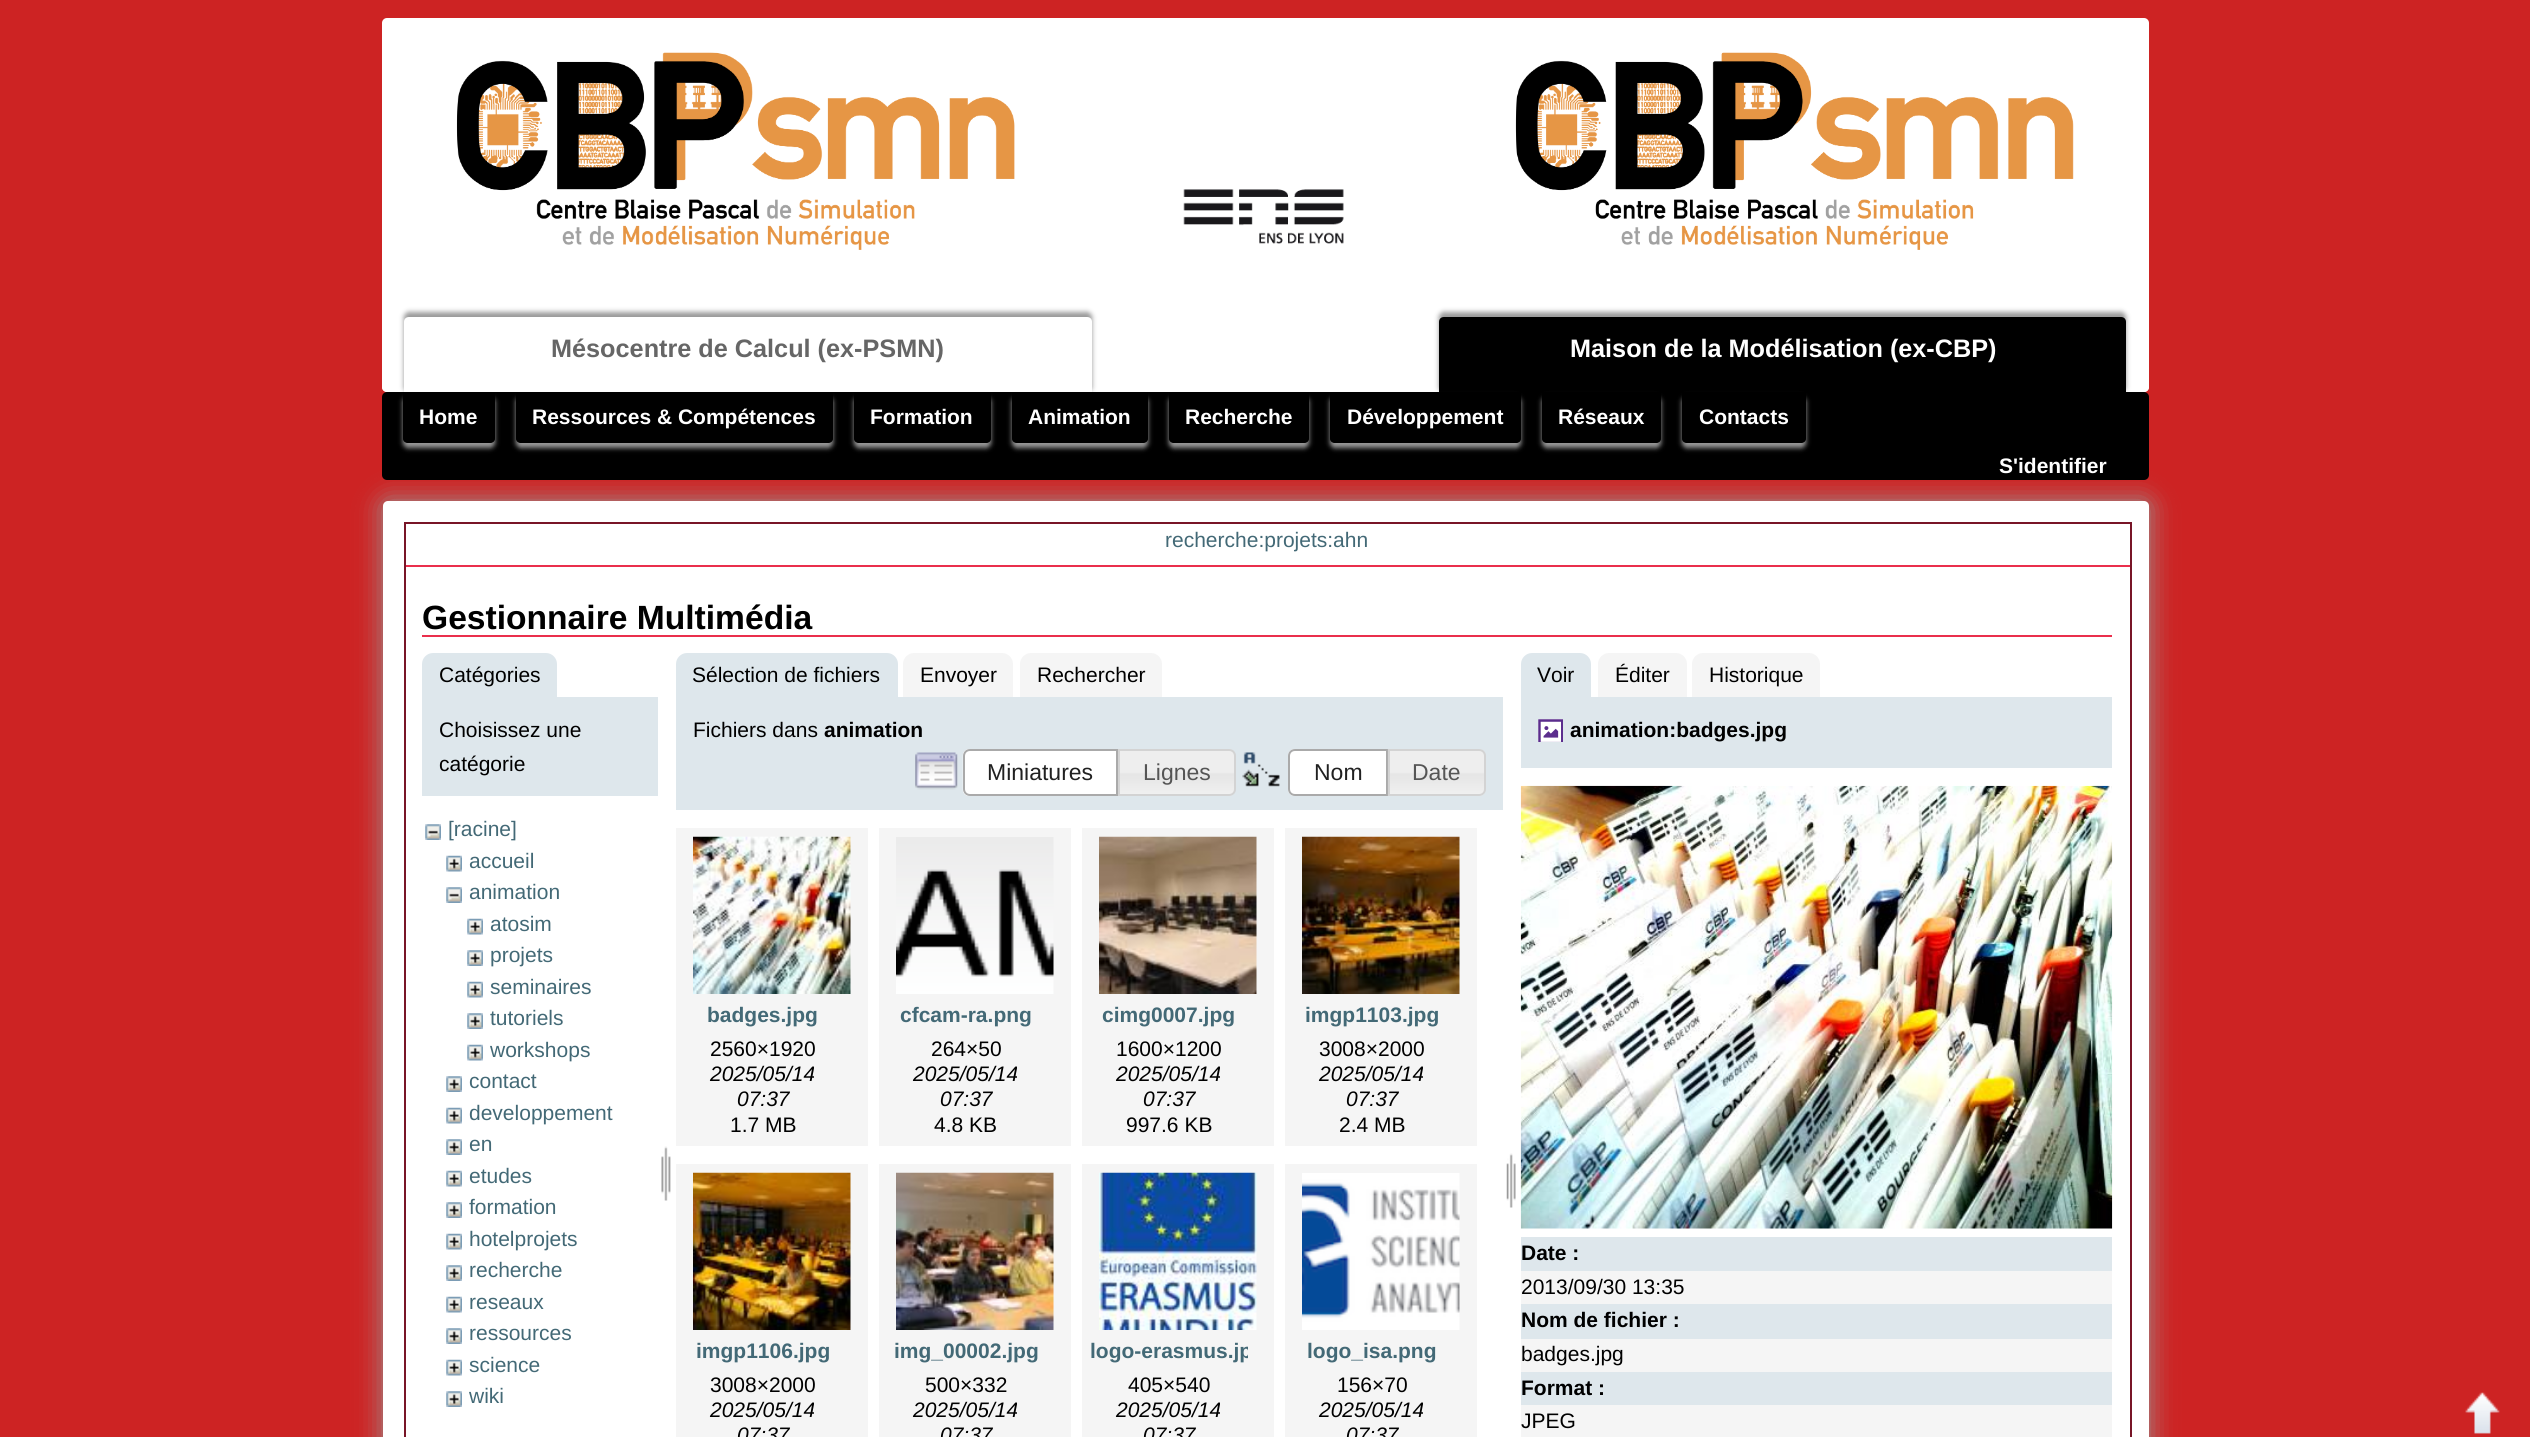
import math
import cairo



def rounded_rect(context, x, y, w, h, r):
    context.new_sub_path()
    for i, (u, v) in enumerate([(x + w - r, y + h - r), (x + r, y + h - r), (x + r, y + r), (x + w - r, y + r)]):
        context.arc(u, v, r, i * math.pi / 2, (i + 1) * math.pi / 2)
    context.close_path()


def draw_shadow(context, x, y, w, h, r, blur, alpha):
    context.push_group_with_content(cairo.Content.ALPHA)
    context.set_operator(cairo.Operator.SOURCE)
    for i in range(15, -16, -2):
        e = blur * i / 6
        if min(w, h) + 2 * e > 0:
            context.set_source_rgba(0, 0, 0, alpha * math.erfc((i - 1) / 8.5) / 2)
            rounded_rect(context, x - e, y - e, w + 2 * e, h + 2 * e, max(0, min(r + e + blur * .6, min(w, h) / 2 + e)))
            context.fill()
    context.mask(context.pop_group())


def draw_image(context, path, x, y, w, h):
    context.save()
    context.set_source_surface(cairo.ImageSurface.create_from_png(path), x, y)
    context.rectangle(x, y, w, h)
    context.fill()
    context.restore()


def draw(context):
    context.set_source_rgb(205 / 255, 35 / 255, 35 / 255)
    context.paint()
    context.set_source_rgb(1, 1, 1)
    rounded_rect(context, 382, 18, 1767, 374, 5)
    context.fill()
    draw_image(context, "images/1.png", 456, 52, 559, 198)
    draw_image(context, "images/2.png", 1183, 189, 161, 55)
    draw_image(context, "images/3.png", 1515, 52, 559, 198)
    rounded_rect(context, 382, 287, 1767, 105, 5)
    context.fill()
    context.set_source_rgb(153 / 255, 153 / 255, 153 / 255)
    draw_shadow(context, 404, 312, 688, 80, 5, 2.5, 1)
    context.set_source_rgb(1, 1, 1)
    context.new_path()
    context.move_to(409, 317)
    context.line_to(1087, 317)
    context.curve_to(1090, 317, 1092, 319, 1092, 322)
    context.line_to(1092, 397)
    context.line_to(404, 397)
    context.line_to(404, 322)
    context.curve_to(404, 319, 406, 317, 409, 317)
    context.close_path()
    context.fill()
    context.set_source_rgb(153 / 255, 153 / 255, 153 / 255)
    draw_shadow(context, 1439, 312, 687, 80, 5, 2.5, 1)
    context.set_source_rgb(0, 0, 0)
    context.new_path()
    context.move_to(1444, 317)
    context.line_to(2121, 317)
    context.curve_to(2124, 317, 2126, 319, 2126, 322)
    context.line_to(2126, 397)
    context.line_to(1439, 397)
    context.line_to(1439, 322)
    context.curve_to(1439, 319, 1441, 317, 1444, 317)
    context.close_path()
    context.fill()
    context.set_source_rgb(153 / 255, 153 / 255, 153 / 255)
    draw_shadow(context, 383, 501, 1766, 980, 5, 13, 1)
    context.set_source_rgb(0, 0, 0)
    rounded_rect(context, 382, 392, 1767, 88, 5)
    context.fill()
    context.save()
    context.set_fill_rule(cairo.FillRule.EVEN_ODD)
    context.new_path()
    context.move_to(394, 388)
    context.line_to(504, 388)
    context.line_to(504, 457)
    context.line_to(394, 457)
    context.close_path()
    context.move_to(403, 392)
    context.line_to(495, 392)
    context.line_to(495, 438)
    context.curve_to(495, 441, 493, 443, 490, 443)
    context.line_to(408, 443)
    context.curve_to(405, 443, 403, 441, 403, 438)
    context.close_path()
    context.clip()
    context.set_source_rgb(153 / 255, 153 / 255, 153 / 255)
    draw_shadow(context, 403, 397, 92, 51, 5, 2.5, 1)
    context.restore()
    context.save()
    context.set_fill_rule(cairo.FillRule.EVEN_ODD)
    context.new_path()
    context.move_to(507, 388)
    context.line_to(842, 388)
    context.line_to(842, 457)
    context.line_to(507, 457)
    context.close_path()
    context.move_to(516, 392)
    context.line_to(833, 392)
    context.line_to(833, 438)
    context.curve_to(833, 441, 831, 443, 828, 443)
    context.line_to(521, 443)
    context.curve_to(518, 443, 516, 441, 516, 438)
    context.close_path()
    context.clip()
    context.set_source_rgb(153 / 255, 153 / 255, 153 / 255)
    draw_shadow(context, 516, 397, 317, 51, 5, 2.5, 1)
    context.restore()
    context.save()
    context.set_fill_rule(cairo.FillRule.EVEN_ODD)
    context.new_path()
    context.move_to(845, 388)
    context.line_to(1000, 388)
    context.line_to(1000, 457)
    context.line_to(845, 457)
    context.close_path()
    context.move_to(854, 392)
    context.line_to(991, 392)
    context.line_to(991, 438)
    context.curve_to(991, 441, 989, 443, 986, 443)
    context.line_to(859, 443)
    context.curve_to(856, 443, 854, 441, 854, 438)
    context.close_path()
    context.clip()
    context.set_source_rgb(153 / 255, 153 / 255, 153 / 255)
    draw_shadow(context, 854, 397, 137, 51, 5, 2.5, 1)
    context.restore()
    context.save()
    context.set_fill_rule(cairo.FillRule.EVEN_ODD)
    context.new_path()
    context.move_to(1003, 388)
    context.line_to(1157, 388)
    context.line_to(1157, 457)
    context.line_to(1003, 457)
    context.close_path()
    context.move_to(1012, 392)
    context.line_to(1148, 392)
    context.line_to(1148, 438)
    context.curve_to(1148, 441, 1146, 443, 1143, 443)
    context.line_to(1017, 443)
    context.curve_to(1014, 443, 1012, 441, 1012, 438)
    context.close_path()
    context.clip()
    context.set_source_rgb(153 / 255, 153 / 255, 153 / 255)
    draw_shadow(context, 1012, 397, 136, 51, 5, 2.5, 1)
    context.restore()
    context.save()
    context.set_fill_rule(cairo.FillRule.EVEN_ODD)
    context.new_path()
    context.move_to(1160, 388)
    context.line_to(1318, 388)
    context.line_to(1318, 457)
    context.line_to(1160, 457)
    context.close_path()
    context.move_to(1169, 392)
    context.line_to(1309, 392)
    context.line_to(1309, 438)
    context.curve_to(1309, 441, 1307, 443, 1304, 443)
    context.line_to(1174, 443)
    context.curve_to(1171, 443, 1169, 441, 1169, 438)
    context.close_path()
    context.clip()
    context.set_source_rgb(153 / 255, 153 / 255, 153 / 255)
    draw_shadow(context, 1169, 397, 140, 51, 5, 2.5, 1)
    context.restore()
    context.save()
    context.set_fill_rule(cairo.FillRule.EVEN_ODD)
    context.new_path()
    context.move_to(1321, 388)
    context.line_to(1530, 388)
    context.line_to(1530, 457)
    context.line_to(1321, 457)
    context.close_path()
    context.move_to(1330, 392)
    context.line_to(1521, 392)
    context.line_to(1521, 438)
    context.curve_to(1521, 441, 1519, 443, 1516, 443)
    context.line_to(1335, 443)
    context.curve_to(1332, 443, 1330, 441, 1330, 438)
    context.close_path()
    context.clip()
    context.set_source_rgb(153 / 255, 153 / 255, 153 / 255)
    draw_shadow(context, 1330, 397, 191, 51, 5, 2.5, 1)
    context.restore()
    context.save()
    context.set_fill_rule(cairo.FillRule.EVEN_ODD)
    context.new_path()
    context.move_to(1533, 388)
    context.line_to(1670, 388)
    context.line_to(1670, 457)
    context.line_to(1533, 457)
    context.close_path()
    context.move_to(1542, 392)
    context.line_to(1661, 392)
    context.line_to(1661, 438)
    context.curve_to(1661, 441, 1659, 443, 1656, 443)
    context.line_to(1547, 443)
    context.curve_to(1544, 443, 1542, 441, 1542, 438)
    context.close_path()
    context.clip()
    context.set_source_rgb(153 / 255, 153 / 255, 153 / 255)
    draw_shadow(context, 1542, 397, 119, 51, 5, 2.5, 1)
    context.restore()
    context.save()
    context.set_fill_rule(cairo.FillRule.EVEN_ODD)
    context.new_path()
    context.move_to(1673, 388)
    context.line_to(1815, 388)
    context.line_to(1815, 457)
    context.line_to(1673, 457)
    context.close_path()
    context.move_to(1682, 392)
    context.line_to(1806, 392)
    context.line_to(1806, 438)
    context.curve_to(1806, 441, 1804, 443, 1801, 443)
    context.line_to(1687, 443)
    context.curve_to(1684, 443, 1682, 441, 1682, 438)
    context.close_path()
    context.clip()
    context.set_source_rgb(153 / 255, 153 / 255, 153 / 255)
    draw_shadow(context, 1682, 397, 124, 51, 5, 2.5, 1)
    context.restore()
    context.set_source_rgb(1, 1, 1)
    rounded_rect(context, 383, 501, 1766, 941, 5)
    context.fill()
    context.rectangle(405, 523, 1726, 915)
    context.set_source_rgb(120 / 255, 21 / 255, 39 / 255)
    context.stroke()
    context.set_source_rgb(234 / 255, 47 / 255, 76 / 255)
    context.rectangle(406, 565, 1724, 2)
    context.fill()
    context.rectangle(422, 635, 1690, 2)
    context.fill()
    context.set_source_rgb(222 / 255, 231 / 255, 236 / 255)
    context.new_path()
    context.move_to(433, 653)
    context.line_to(546, 653)
    context.curve_to(552, 653, 557, 658, 557, 664)
    context.line_to(557, 697)
    context.line_to(422, 697)
    context.line_to(422, 664)
    context.curve_to(422, 658, 427, 653, 433, 653)
    context.close_path()
    context.fill()
    context.rectangle(422, 697, 236, 99)
    context.fill()
    draw_image(context, "images/4.png", 425, 824, 16, 16)
    draw_image(context, "images/5.png", 446, 855, 16, 17)
    draw_image(context, "images/4.png", 446, 887, 16, 16)
    draw_image(context, "images/5.png", 467, 918, 16, 17)
    draw_image(context, "images/6.png", 467, 950, 16, 16)
    draw_image(context, "images/5.png", 467, 981, 16, 17)
    draw_image(context, "images/6.png", 467, 1013, 16, 16)
    draw_image(context, "images/5.png", 467, 1044, 16, 17)
    draw_image(context, "images/6.png", 446, 1076, 16, 16)
    draw_image(context, "images/5.png", 446, 1107, 16, 17)
    draw_image(context, "images/6.png", 446, 1139, 16, 16)
    draw_image(context, "images/5.png", 446, 1170, 16, 17)
    draw_image(context, "images/6.png", 446, 1202, 16, 16)
    draw_image(context, "images/5.png", 446, 1233, 16, 17)
    draw_image(context, "images/6.png", 446, 1265, 16, 16)
    draw_image(context, "images/5.png", 446, 1296, 16, 17)
    draw_image(context, "images/6.png", 446, 1328, 16, 16)
    draw_image(context, "images/5.png", 446, 1359, 16, 17)
    draw_image(context, "images/6.png", 446, 1391, 16, 16)
    draw_image(context, "images/7.png", 661, 1146, 10, 55)
    context.new_path()
    context.move_to(687, 653)
    context.line_to(887, 653)
    context.curve_to(893, 653, 898, 658, 898, 664)
    context.line_to(898, 697)
    context.line_to(676, 697)
    context.line_to(676, 664)
    context.curve_to(676, 658, 681, 653, 687, 653)
    context.close_path()
    context.fill()
    context.set_source_rgb(245 / 255, 245 / 255, 245 / 255)
    context.new_path()
    context.move_to(914, 653)
    context.line_to(1002, 653)
    context.curve_to(1008, 653, 1013, 658, 1013, 664)
    context.line_to(1013, 697)
    context.line_to(903, 697)
    context.line_to(903, 664)
    context.curve_to(903, 658, 908, 653, 914, 653)
    context.close_path()
    context.fill()
    context.new_path()
    context.move_to(1031, 653)
    context.line_to(1151, 653)
    context.curve_to(1157, 653, 1162, 658, 1162, 664)
    context.line_to(1162, 697)
    context.line_to(1020, 697)
    context.line_to(1020, 664)
    context.curve_to(1020, 658, 1025, 653, 1031, 653)
    context.close_path()
    context.fill()
    context.set_source_rgb(222 / 255, 231 / 255, 236 / 255)
    context.rectangle(676, 697, 827, 113)
    context.fill()
    draw_image(context, "images/8.png", 915, 752, 43, 38)
    context.set_source_rgb(1, 1, 1)
    context.new_path()
    context.move_to(970, 749)
    context.line_to(1118, 749)
    context.line_to(1118, 796)
    context.line_to(970, 796)
    context.curve_to(966, 796, 963, 793, 963, 789)
    context.line_to(963, 756)
    context.curve_to(963, 752, 966, 749, 970, 749)
    context.close_path()
    context.fill()
    draw_image(context, "images/9.png", 962, 749, 7, 47)
    context.new_path()
    context.move_to(970, 750)
    context.line_to(1117, 750)
    context.line_to(1117, 795)
    context.line_to(970, 795)
    context.curve_to(966.5, 795, 964, 792.5, 964, 789)
    context.line_to(964, 756)
    context.curve_to(964, 752.5, 966.5, 750, 970, 750)
    context.close_path()
    context.set_source_rgb(170 / 255, 170 / 255, 170 / 255)
    context.stroke()
    draw_image(context, "images/10.png", 1120, 749, 115, 47)
    context.new_path()
    context.move_to(1119, 750)
    context.line_to(1229, 750)
    context.curve_to(1232.5, 750, 1235, 752.5, 1235, 756)
    context.line_to(1235, 789)
    context.curve_to(1235, 792.5, 1232.5, 795, 1229, 795)
    context.line_to(1119, 795)
    context.close_path()
    context.set_source_rgb(211 / 255, 211 / 255, 211 / 255)
    context.stroke()
    draw_image(context, "images/11.png", 1242, 752, 38, 35)
    context.set_source_rgb(1, 1, 1)
    context.new_path()
    context.move_to(1295, 749)
    context.line_to(1388, 749)
    context.line_to(1388, 796)
    context.line_to(1295, 796)
    context.curve_to(1291, 796, 1288, 793, 1288, 789)
    context.line_to(1288, 756)
    context.curve_to(1288, 752, 1291, 749, 1295, 749)
    context.close_path()
    context.fill()
    draw_image(context, "images/12.png", 1288, 749, 6, 47)
    context.new_path()
    context.move_to(1295, 750)
    context.line_to(1387, 750)
    context.line_to(1387, 795)
    context.line_to(1295, 795)
    context.curve_to(1291.5, 795, 1289, 792.5, 1289, 789)
    context.line_to(1289, 756)
    context.curve_to(1289, 752.5, 1291.5, 750, 1295, 750)
    context.close_path()
    context.set_source_rgb(170 / 255, 170 / 255, 170 / 255)
    context.stroke()
    draw_image(context, "images/13.png", 1387, 749, 99, 47)
    context.new_path()
    context.move_to(1389, 750)
    context.line_to(1479, 750)
    context.curve_to(1482.5, 750, 1485, 752.5, 1485, 756)
    context.line_to(1485, 789)
    context.curve_to(1485, 792.5, 1482.5, 795, 1479, 795)
    context.line_to(1389, 795)
    context.close_path()
    context.set_source_rgb(211 / 255, 211 / 255, 211 / 255)
    context.stroke()
    context.set_source_rgb(245 / 255, 245 / 255, 245 / 255)
    context.rectangle(676, 828, 192, 318)
    context.fill()
    draw_image(context, "images/14.png", 693, 836, 158, 158)
    context.rectangle(879, 828, 192, 318)
    context.fill()
    draw_image(context, "images/15.png", 896, 837, 158, 157)
    context.rectangle(1082, 828, 192, 318)
    context.fill()
    draw_image(context, "images/16.png", 1099, 836, 158, 158)
    context.rectangle(1285, 828, 192, 318)
    context.fill()
    draw_image(context, "images/17.png", 1302, 836, 158, 158)
    context.rectangle(676, 1164, 192, 273)
    context.fill()
    draw_image(context, "images/18.png", 693, 1172, 158, 158)
    context.rectangle(879, 1164, 192, 273)
    context.fill()
    draw_image(context, "images/19.png", 896, 1172, 158, 158)
    context.rectangle(1082, 1164, 192, 273)
    context.fill()
    draw_image(context, "images/20.png", 1099, 1172, 158, 158)
    context.rectangle(1285, 1164, 192, 273)
    context.fill()
    draw_image(context, "images/21.png", 1302, 1173, 158, 157)
    draw_image(context, "images/22.png", 1506, 1153, 10, 55)
    context.set_source_rgb(222 / 255, 231 / 255, 236 / 255)
    context.new_path()
    context.move_to(1532, 653)
    context.line_to(1580, 653)
    context.curve_to(1586, 653, 1591, 658, 1591, 664)
    context.line_to(1591, 697)
    context.line_to(1521, 697)
    context.line_to(1521, 664)
    context.curve_to(1521, 658, 1526, 653, 1532, 653)
    context.close_path()
    context.fill()
    context.set_source_rgb(245 / 255, 245 / 255, 245 / 255)
    context.new_path()
    context.move_to(1609, 653)
    context.line_to(1676, 653)
    context.curve_to(1682, 653, 1687, 658, 1687, 664)
    context.line_to(1687, 697)
    context.line_to(1598, 697)
    context.line_to(1598, 664)
    context.curve_to(1598, 658, 1603, 653, 1609, 653)
    context.close_path()
    context.fill()
    context.new_path()
    context.move_to(1703, 653)
    context.line_to(1809, 653)
    context.curve_to(1815, 653, 1820, 658, 1820, 664)
    context.line_to(1820, 697)
    context.line_to(1692, 697)
    context.line_to(1692, 664)
    context.curve_to(1692, 658, 1697, 653, 1703, 653)
    context.close_path()
    context.fill()
    context.set_source_rgb(222 / 255, 231 / 255, 236 / 255)
    context.rectangle(1521, 697, 591, 71)
    context.fill()
    draw_image(context, "images/23.png", 1538, 719, 25, 23)
    draw_image(context, "images/24.png", 1520, 785, 593, 444)
    context.rectangle(1521, 1237, 591, 34)
    context.fill()
    context.set_source_rgb(245 / 255, 245 / 255, 245 / 255)
    context.rectangle(1521, 1271, 591, 33)
    context.fill()
    context.set_source_rgb(222 / 255, 231 / 255, 236 / 255)
    context.rectangle(1521, 1304, 591, 35)
    context.fill()
    context.set_source_rgb(245 / 255, 245 / 255, 245 / 255)
    context.rectangle(1521, 1339, 591, 33)
    context.fill()
    context.set_source_rgb(222 / 255, 231 / 255, 236 / 255)
    context.rectangle(1521, 1372, 591, 33)
    context.fill()
    context.set_source_rgb(245 / 255, 245 / 255, 245 / 255)
    context.rectangle(1521, 1405, 591, 32)
    context.fill()
    draw_image(context, "images/25.png", 2465, 1392, 35, 42)
    context.select_font_face("Liberation Sans", cairo.FontSlant.NORMAL, cairo.FontWeight.BOLD)
    context.set_font_size(25.25)
    context.set_source_rgb(102 / 255, 102 / 255, 102 / 255)
    context.move_to(551, 357)
    context.show_text("Mésocentre de Calcul (ex-PSMN)")
    context.set_source_rgb(1, 1, 1)
    context.move_to(1570, 357)
    context.show_text("Maison de la Modélisation (ex-CBP)")
    context.set_font_size(21)
    context.move_to(419, 424)
    context.show_text("Home")
    context.move_to(532, 424)
    context.show_text("Ressources & Compétences")
    context.move_to(870, 424)
    context.show_text("Formation")
    context.move_to(1028, 424)
    context.show_text("Animation")
    context.move_to(1185, 424)
    context.show_text("Recherche")
    context.move_to(1347, 424)
    context.show_text("Développement")
    context.move_to(1558, 424)
    context.show_text("Réseaux")
    context.move_to(1699, 424)
    context.show_text("Contacts")
    context.move_to(1999, 473)
    context.show_text("S'identifier")
    context.select_font_face("Liberation Sans")
    context.set_source_rgb(67 / 255, 105 / 255, 118 / 255)
    context.move_to(1165, 547)
    context.show_text("recherche:projets:ahn")
    context.select_font_face("Liberation Sans", cairo.FontSlant.NORMAL, cairo.FontWeight.BOLD)
    context.set_font_size(33.6)
    context.set_source_rgb(0, 0, 0)
    context.move_to(422, 629)
    context.show_text("Gestionnaire Multimédia")
    context.select_font_face("Liberation Sans")
    context.set_font_size(21)
    context.move_to(439, 682)
    context.show_text("Catégories")
    context.move_to(439, 737)
    context.show_text("Choisissez une")
    context.move_to(439, 771)
    context.show_text("catégorie")
    context.set_source_rgb(67 / 255, 105 / 255, 118 / 255)
    context.move_to(448, 836)
    context.show_text("[racine]")
    context.move_to(469, 868)
    context.show_text("accueil")
    context.move_to(469, 899)
    context.show_text("animation")
    context.move_to(490, 931)
    context.show_text("atosim")
    context.move_to(490, 962)
    context.show_text("projets")
    context.move_to(490, 994)
    context.show_text("seminaires")
    context.move_to(490, 1025)
    context.show_text("tutoriels")
    context.move_to(490, 1057)
    context.show_text("workshops")
    context.move_to(469, 1088)
    context.show_text("contact")
    context.move_to(469, 1120)
    context.show_text("developpement")
    context.move_to(469, 1151)
    context.show_text("en")
    context.move_to(469, 1183)
    context.show_text("etudes")
    context.move_to(469, 1214)
    context.show_text("formation")
    context.move_to(469, 1246)
    context.show_text("hotelprojets")
    context.move_to(469, 1277)
    context.show_text("recherche")
    context.move_to(469, 1309)
    context.show_text("reseaux")
    context.move_to(469, 1340)
    context.show_text("ressources")
    context.move_to(469, 1372)
    context.show_text("science")
    context.move_to(469, 1403)
    context.show_text("wiki")
    context.set_source_rgb(0, 0, 0)
    context.move_to(692, 682)
    context.show_text("Sélection de fichiers")
    context.move_to(920, 682)
    context.show_text("Envoyer")
    context.move_to(1037, 682)
    context.show_text("Rechercher")
    context.move_to(693, 737)
    context.show_text("Fichiers dans")
    context.select_font_face("Liberation Sans", cairo.FontSlant.NORMAL, cairo.FontWeight.BOLD)
    context.move_to(824, 737)
    context.show_text("animation")
    context.select_font_face("Liberation Sans")
    context.set_font_size(23)
    context.set_source_rgb(33 / 255, 33 / 255, 33 / 255)
    context.move_to(987, 780)
    context.show_text("Miniatures")
    context.set_source_rgb(85 / 255, 85 / 255, 85 / 255)
    context.move_to(1143, 780)
    context.show_text("Lignes")
    context.set_source_rgb(33 / 255, 33 / 255, 33 / 255)
    context.move_to(1314, 780)
    context.show_text("Nom")
    context.set_source_rgb(85 / 255, 85 / 255, 85 / 255)
    context.move_to(1412, 780)
    context.show_text("Date")
    context.select_font_face("Liberation Sans", cairo.FontSlant.NORMAL, cairo.FontWeight.BOLD)
    context.set_font_size(21)
    context.set_source_rgb(67 / 255, 105 / 255, 118 / 255)
    context.move_to(707, 1022)
    context.show_text("badges.jpg")
    context.select_font_face("Liberation Sans")
    context.set_source_rgb(0, 0, 0)
    context.move_to(710, 1056)
    context.show_text("2560×1920")
    context.select_font_face("Liberation Sans", cairo.FontSlant.ITALIC)
    context.move_to(710, 1081)
    context.show_text("2025/05/14")
    context.move_to(737, 1106)
    context.show_text("07:37")
    context.select_font_face("Liberation Sans")
    context.move_to(730, 1132)
    context.show_text("1.7 MB")
    context.select_font_face("Liberation Sans", cairo.FontSlant.NORMAL, cairo.FontWeight.BOLD)
    context.set_source_rgb(67 / 255, 105 / 255, 118 / 255)
    context.move_to(900, 1022)
    context.show_text("cfcam-ra.png")
    context.select_font_face("Liberation Sans")
    context.set_source_rgb(0, 0, 0)
    context.move_to(931, 1056)
    context.show_text("264×50")
    context.select_font_face("Liberation Sans", cairo.FontSlant.ITALIC)
    context.move_to(913, 1081)
    context.show_text("2025/05/14")
    context.move_to(940, 1106)
    context.show_text("07:37")
    context.select_font_face("Liberation Sans")
    context.move_to(934, 1132)
    context.show_text("4.8 KB")
    context.select_font_face("Liberation Sans", cairo.FontSlant.NORMAL, cairo.FontWeight.BOLD)
    context.set_source_rgb(67 / 255, 105 / 255, 118 / 255)
    context.move_to(1102, 1022)
    context.show_text("cimg0007.jpg")
    context.select_font_face("Liberation Sans")
    context.set_source_rgb(0, 0, 0)
    context.move_to(1116, 1056)
    context.show_text("1600×1200")
    context.select_font_face("Liberation Sans", cairo.FontSlant.ITALIC)
    context.move_to(1116, 1081)
    context.show_text("2025/05/14")
    context.move_to(1143, 1106)
    context.show_text("07:37")
    context.select_font_face("Liberation Sans")
    context.move_to(1126, 1132)
    context.show_text("997.6 KB")
    context.select_font_face("Liberation Sans", cairo.FontSlant.NORMAL, cairo.FontWeight.BOLD)
    context.set_source_rgb(67 / 255, 105 / 255, 118 / 255)
    context.move_to(1305, 1022)
    context.show_text("imgp1103.jpg")
    context.select_font_face("Liberation Sans")
    context.set_source_rgb(0, 0, 0)
    context.move_to(1319, 1056)
    context.show_text("3008×2000")
    context.select_font_face("Liberation Sans", cairo.FontSlant.ITALIC)
    context.move_to(1319, 1081)
    context.show_text("2025/05/14")
    context.move_to(1346, 1106)
    context.show_text("07:37")
    context.select_font_face("Liberation Sans")
    context.move_to(1339, 1132)
    context.show_text("2.4 MB")
    context.select_font_face("Liberation Sans", cairo.FontSlant.NORMAL, cairo.FontWeight.BOLD)
    context.set_source_rgb(67 / 255, 105 / 255, 118 / 255)
    context.move_to(696, 1358)
    context.show_text("imgp1106.jpg")
    context.select_font_face("Liberation Sans")
    context.set_source_rgb(0, 0, 0)
    context.move_to(710, 1392)
    context.show_text("3008×2000")
    context.select_font_face("Liberation Sans", cairo.FontSlant.ITALIC)
    context.move_to(710, 1417)
    context.show_text("2025/05/14")
    context.move_to(737, 1442)
    context.show_text("07:37")
    context.select_font_face("Liberation Sans", cairo.FontSlant.NORMAL, cairo.FontWeight.BOLD)
    context.set_source_rgb(67 / 255, 105 / 255, 118 / 255)
    context.move_to(894, 1358)
    context.show_text("img_00002.jpg")
    context.select_font_face("Liberation Sans")
    context.set_source_rgb(0, 0, 0)
    context.move_to(925, 1392)
    context.show_text("500×332")
    context.select_font_face("Liberation Sans", cairo.FontSlant.ITALIC)
    context.move_to(913, 1417)
    context.show_text("2025/05/14")
    context.move_to(940, 1442)
    context.show_text("07:37")
    context.save()
    context.rectangle(1090, 1330, 158, 42)
    context.clip()
    context.select_font_face("Liberation Sans", cairo.FontSlant.NORMAL, cairo.FontWeight.BOLD)
    context.set_source_rgb(67 / 255, 105 / 255, 118 / 255)
    context.move_to(1090, 1358)
    context.show_text("logo-erasmus.jp")
    context.restore()
    context.select_font_face("Liberation Sans")
    context.move_to(1128, 1392)
    context.show_text("405×540")
    context.select_font_face("Liberation Sans", cairo.FontSlant.ITALIC)
    context.move_to(1116, 1417)
    context.show_text("2025/05/14")
    context.move_to(1143, 1442)
    context.show_text("07:37")
    context.select_font_face("Liberation Sans", cairo.FontSlant.NORMAL, cairo.FontWeight.BOLD)
    context.set_source_rgb(67 / 255, 105 / 255, 118 / 255)
    context.move_to(1307, 1358)
    context.show_text("logo_isa.png")
    context.select_font_face("Liberation Sans")
    context.set_source_rgb(0, 0, 0)
    context.move_to(1337, 1392)
    context.show_text("156×70")
    context.select_font_face("Liberation Sans", cairo.FontSlant.ITALIC)
    context.move_to(1319, 1417)
    context.show_text("2025/05/14")
    context.move_to(1346, 1442)
    context.show_text("07:37")
    context.select_font_face("Liberation Sans")
    context.move_to(1537, 682)
    context.show_text("Voir")
    context.move_to(1615, 682)
    context.show_text("Éditer")
    context.move_to(1709, 682)
    context.show_text("Historique")
    context.select_font_face("Liberation Sans", cairo.FontSlant.NORMAL, cairo.FontWeight.BOLD)
    context.move_to(1570, 737)
    context.show_text("animation:badges.jpg")
    context.move_to(1521, 1260)
    context.show_text("Date :")
    context.select_font_face("Liberation Sans")
    context.move_to(1521, 1294)
    context.show_text("2013/09/30 13:35")
    context.select_font_face("Liberation Sans", cairo.FontSlant.NORMAL, cairo.FontWeight.BOLD)
    context.move_to(1521, 1327)
    context.show_text("Nom de fichier :")
    context.select_font_face("Liberation Sans")
    context.move_to(1521, 1361)
    context.show_text("badges.jpg")
    context.select_font_face("Liberation Sans", cairo.FontSlant.NORMAL, cairo.FontWeight.BOLD)
    context.move_to(1521, 1395)
    context.show_text("Format :")
    context.select_font_face("Liberation Sans")
    context.move_to(1521, 1428)
    context.show_text("JPEG")


surface = cairo.ImageSurface(cairo.Format.RGB24, 2530, 1437)
context = cairo.Context(surface)
options = cairo.FontOptions()
options.set_hint_metrics(cairo.HintMetrics.OFF)
options.set_hint_style(cairo.HintStyle.NONE)
context.set_font_options(options)
context.set_miter_limit(4)
draw(context)
surface.write_to_png("out.png")
